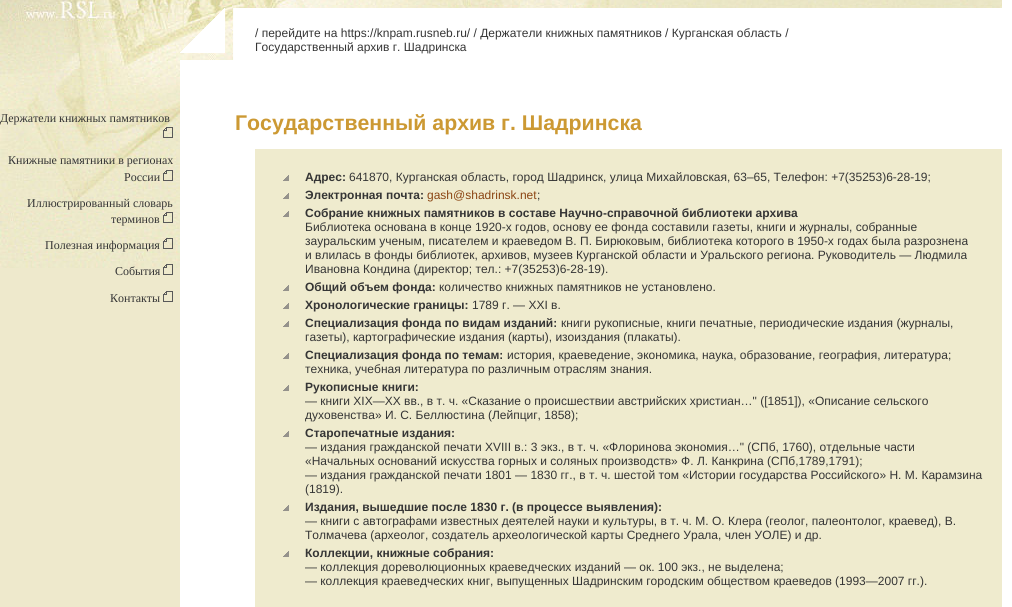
import math
import cairo



def draw_image(context, path, x, y, w, h):
    context.save()
    context.set_source_surface(cairo.ImageSurface.create_from_png(path), x, y)
    context.rectangle(x, y, w, h)
    context.fill()
    context.restore()


def draw(context):
    context.set_source_rgb(1, 1, 1)
    context.paint()
    context.set_source_rgb(238 / 255, 233 / 255, 204 / 255)
    context.rectangle(0, 268, 180, 339)
    context.fill()
    draw_image(context, "images/1.png", 0, 0, 1002, 268)
    draw_image(context, "images/2.png", 163, 127, 10, 11)
    draw_image(context, "images/3.png", 163, 170, 10, 11)
    draw_image(context, "images/4.png", 163, 212, 10, 11)
    draw_image(context, "images/5.png", 163, 238, 10, 11)
    draw_image(context, "images/6.png", 163, 264, 10, 11)
    draw_image(context, "images/7.png", 163, 291, 10, 11)
    draw_image(context, "images/8.png", 180, 8, 822, 58)
    context.set_source_rgb(1, 1, 1)
    context.rectangle(180, 66, 822, 202)
    context.fill()
    context.set_source_rgb(239 / 255, 235 / 255, 206 / 255)
    context.rectangle(255, 149, 747, 458)
    context.fill()
    draw_image(context, "images/9.png", 283, 175, 6, 6)
    draw_image(context, "images/9.png", 283, 193, 6, 6)
    draw_image(context, "images/9.png", 283, 211, 6, 6)
    draw_image(context, "images/9.png", 283, 285, 6, 6)
    draw_image(context, "images/9.png", 283, 303, 6, 6)
    draw_image(context, "images/9.png", 283, 321, 6, 6)
    draw_image(context, "images/9.png", 283, 353, 6, 6)
    draw_image(context, "images/9.png", 283, 385, 6, 6)
    draw_image(context, "images/9.png", 283, 431, 6, 6)
    draw_image(context, "images/9.png", 283, 505, 6, 6)
    draw_image(context, "images/9.png", 283, 551, 6, 6)
    context.select_font_face("Liberation Serif")
    context.set_font_size(12)
    context.set_source_rgb(53 / 255, 53 / 255, 53 / 255)
    context.move_to(0, 122)
    context.show_text("Держатели книжных памятников")
    context.move_to(8, 164)
    context.show_text("Книжные памятники в регионах")
    context.move_to(124, 181)
    context.show_text("России")
    context.move_to(27, 207)
    context.show_text("Иллюстрированный словарь")
    context.move_to(111, 223)
    context.show_text("терминов")
    context.move_to(45, 249)
    context.show_text("Полезная информация")
    context.move_to(115, 275)
    context.show_text("События")
    context.move_to(110, 302)
    context.show_text("Контакты")
    context.select_font_face("Liberation Sans")
    context.move_to(255, 37)
    context.show_text("/ перейдите на https://knpam.rusneb.ru/ / Держатели книжных памятников / Курганская область /")
    context.move_to(255, 51)
    context.show_text("Государственный архив г. Шадринска")
    context.select_font_face("Liberation Sans", cairo.FontSlant.NORMAL, cairo.FontWeight.BOLD)
    context.set_font_size(21.3)
    context.set_source_rgb(204 / 255, 153 / 255, 51 / 255)
    context.move_to(235, 130)
    context.show_text("Государственный архив г. Шадринска")
    context.set_font_size(12)
    context.set_source_rgb(53 / 255, 53 / 255, 53 / 255)
    context.move_to(305, 181)
    context.show_text("Адрес:")
    context.select_font_face("Liberation Sans")
    context.move_to(349, 181)
    context.show_text("641870, Курганская область, город Шадринск, улица Михайловская, 63–65, Телефон: +7(35253)6-28-19;")
    context.select_font_face("Liberation Sans", cairo.FontSlant.NORMAL, cairo.FontWeight.BOLD)
    context.move_to(305, 199)
    context.show_text("Электронная почта:")
    context.select_font_face("Liberation Sans")
    context.set_source_rgb(139 / 255, 69 / 255, 19 / 255)
    context.move_to(427, 199)
    context.show_text("gash@shadrinsk.net")
    context.set_source_rgb(53 / 255, 53 / 255, 53 / 255)
    context.move_to(537, 199)
    context.show_text(";")
    context.select_font_face("Liberation Sans", cairo.FontSlant.NORMAL, cairo.FontWeight.BOLD)
    context.move_to(305, 217)
    context.show_text("Собрание книжных памятников в составе Научно-справочной библиотеки архива")
    context.select_font_face("Liberation Sans")
    context.move_to(305, 231)
    context.show_text("Библиотека основана в конце 1920-х годов, основу ее фонда составили газеты, книги и журналы, собранные")
    context.move_to(305, 245)
    context.show_text("зауральским ученым, писателем и краеведом В. П. Бирюковым, библиотека которого в 1950-х годах была разрознена")
    context.move_to(305, 259)
    context.show_text("и влилась в фонды библиотек, архивов, музеев Курганской области и Уральского региона. Руководитель — Людмила")
    context.move_to(305, 273)
    context.show_text("Ивановна Кондина (директор; тел.: +7(35253)6-28-19).")
    context.select_font_face("Liberation Sans", cairo.FontSlant.NORMAL, cairo.FontWeight.BOLD)
    context.move_to(305, 291)
    context.show_text("Общий объем фонда:")
    context.select_font_face("Liberation Sans")
    context.move_to(439, 291)
    context.show_text("количество книжных памятников не установлено.")
    context.select_font_face("Liberation Sans", cairo.FontSlant.NORMAL, cairo.FontWeight.BOLD)
    context.move_to(305, 309)
    context.show_text("Хронологические границы:")
    context.select_font_face("Liberation Sans")
    context.move_to(472, 309)
    context.show_text("1789 г. — XXI в.")
    context.select_font_face("Liberation Sans", cairo.FontSlant.NORMAL, cairo.FontWeight.BOLD)
    context.move_to(305, 327)
    context.show_text("Специализация фонда по видам изданий:")
    context.select_font_face("Liberation Sans")
    context.move_to(561, 327)
    context.show_text("книги рукописные, книги печатные, периодические издания (журналы,")
    context.move_to(305, 341)
    context.show_text("газеты), картографические издания (карты), изоиздания (плакаты).")
    context.select_font_face("Liberation Sans", cairo.FontSlant.NORMAL, cairo.FontWeight.BOLD)
    context.move_to(305, 359)
    context.show_text("Специализация фонда по темам:")
    context.select_font_face("Liberation Sans")
    context.move_to(507, 359)
    context.show_text("история, краеведение, экономика, наука, образование, география, литература;")
    context.move_to(305, 373)
    context.show_text("техника, учебная литература по различным отраслям знания.")
    context.select_font_face("Liberation Sans", cairo.FontSlant.NORMAL, cairo.FontWeight.BOLD)
    context.move_to(305, 391)
    context.show_text("Рукописные книги:")
    context.select_font_face("Liberation Sans")
    context.move_to(305, 405)
    context.show_text("— книги XIX—XX вв., в т. ч. «Сказание о происшествии австрийских христиан…\" ([1851]), «Описание сельского")
    context.move_to(305, 419)
    context.show_text("духовенства» И. С. Беллюстина (Лейпциг, 1858);")
    context.select_font_face("Liberation Sans", cairo.FontSlant.NORMAL, cairo.FontWeight.BOLD)
    context.move_to(305, 437)
    context.show_text("Старопечатные издания:")
    context.select_font_face("Liberation Sans")
    context.move_to(305, 451)
    context.show_text("— издания гражданской печати XVIII в.: 3 экз., в т. ч. «Флоринова экономия…\" (СПб, 1760), отдельные части")
    context.move_to(305, 465)
    context.show_text("«Начальных оснований искусства горных и соляных производств» Ф. Л. Канкрина (СПб,1789,1791);")
    context.move_to(305, 479)
    context.show_text("— издания гражданской печати 1801 — 1830 гг., в т. ч. шестой том «Истории государства Российского» Н. М. Карамзина")
    context.move_to(305, 493)
    context.show_text("(1819).")
    context.select_font_face("Liberation Sans", cairo.FontSlant.NORMAL, cairo.FontWeight.BOLD)
    context.move_to(305, 511)
    context.show_text("Издания, вышедшие после 1830 г. (в процессе выявления):")
    context.select_font_face("Liberation Sans")
    context.move_to(305, 525)
    context.show_text("— книги с автографами известных деятелей науки и культуры, в т. ч. М. О. Клера (геолог, палеонтолог, краевед), В.")
    context.move_to(305, 539)
    context.show_text("Толмачева (археолог, создатель археологической карты Среднего Урала, член УОЛЕ) и др.")
    context.select_font_face("Liberation Sans", cairo.FontSlant.NORMAL, cairo.FontWeight.BOLD)
    context.move_to(305, 557)
    context.show_text("Коллекции, книжные собрания:")
    context.select_font_face("Liberation Sans")
    context.move_to(305, 571)
    context.show_text("— коллекция дореволюционных краеведческих изданий — ок. 100 экз., не выделена;")
    context.move_to(305, 585)
    context.show_text("— коллекция краеведческих книг, выпущенных Шадринским городским обществом краеведов (1993—2007 гг.).")


surface = cairo.ImageSurface(cairo.Format.RGB24, 1012, 607)
context = cairo.Context(surface)
options = cairo.FontOptions()
options.set_hint_metrics(cairo.HintMetrics.OFF)
options.set_hint_style(cairo.HintStyle.NONE)
context.set_font_options(options)
context.set_miter_limit(4)
draw(context)
surface.write_to_png("out.png")
